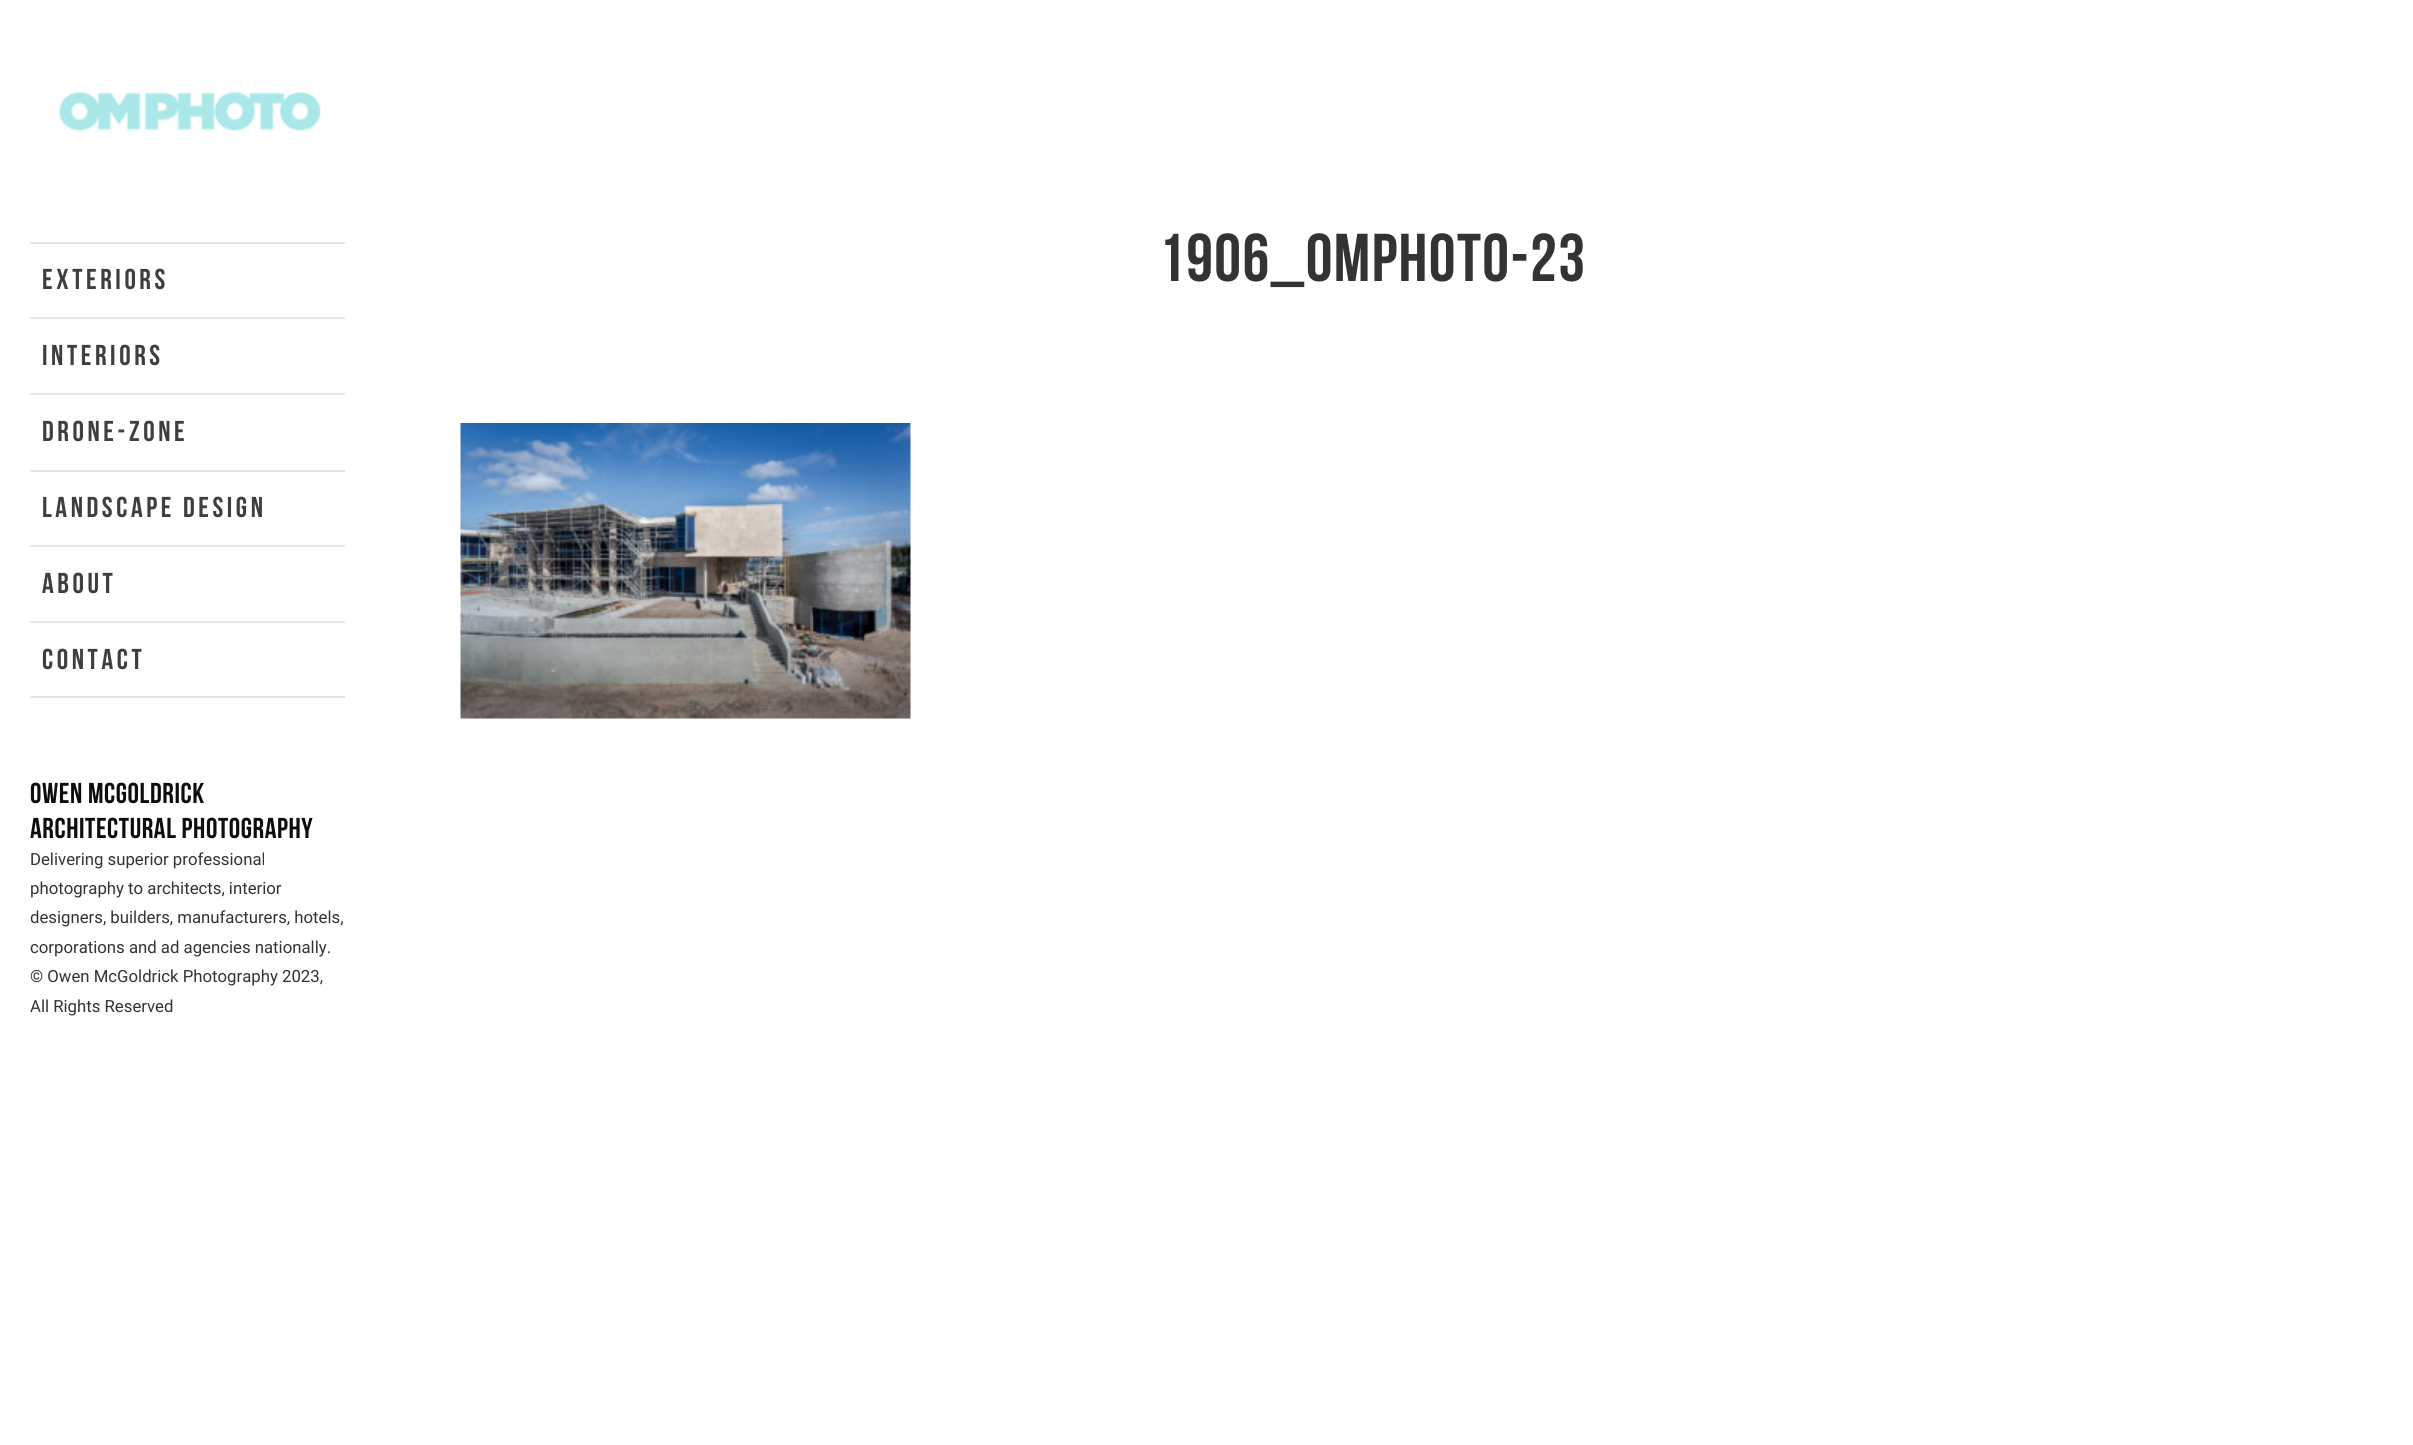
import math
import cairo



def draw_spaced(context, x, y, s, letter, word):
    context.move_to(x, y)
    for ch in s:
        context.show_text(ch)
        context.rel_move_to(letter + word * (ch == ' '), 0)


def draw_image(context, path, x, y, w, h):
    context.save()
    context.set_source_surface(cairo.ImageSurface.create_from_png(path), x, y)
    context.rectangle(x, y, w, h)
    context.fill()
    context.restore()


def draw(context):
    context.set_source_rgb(1, 1, 1)
    context.paint()
    draw_image(context, "images/1.png", 460, 423, 451, 296)
    draw_image(context, "images/2.png", 58, 91, 263, 41)
    context.set_source_rgb(230 / 255, 230 / 255, 230 / 255)
    context.rectangle(30, 242, 315, 2)
    context.fill()
    context.rectangle(30, 317, 315, 2)
    context.fill()
    context.rectangle(30, 393, 315, 2)
    context.fill()
    context.rectangle(30, 470, 315, 2)
    context.fill()
    context.rectangle(30, 545, 315, 2)
    context.fill()
    context.rectangle(30, 621, 315, 2)
    context.fill()
    context.rectangle(30, 696, 315, 2)
    context.fill()
    context.select_font_face("Bebas Neue")
    context.set_font_size(67.5)
    context.set_source_rgb(51 / 255, 51 / 255, 51 / 255)
    draw_spaced(context, 1158, 281, "1906_OMPHOTO-23", 1.4, 0)
    context.set_font_size(28.75)
    context.set_source_rgb(62 / 255, 62 / 255, 64 / 255)
    draw_spaced(context, 42, 289, "EXTERIORS", 3.6, 0)
    draw_spaced(context, 42, 365, "INTERIORS", 3.6, 0)
    draw_spaced(context, 42, 441, "DRONE-ZONE", 3.6, 0)
    draw_spaced(context, 42, 517, "LANDSCAPE DESIGN", 3.6, 0)
    draw_spaced(context, 42, 593, "ABOUT", 3.6, 0)
    draw_spaced(context, 42, 669, "CONTACT", 3.6, 0)
    context.set_source_rgb(13 / 255, 13 / 255, 13 / 255)
    draw_spaced(context, 30, 803, "Owen McGoldrick", 0.6, 0)
    draw_spaced(context, 30, 838, "Architectural Photography", 0.6, 0)
    context.select_font_face("Roboto")
    context.set_font_size(16.75)
    context.set_source_rgb(51 / 255, 51 / 255, 51 / 255)
    context.move_to(30, 865)
    context.show_text("Delivering superior professional")
    context.move_to(30, 894)
    context.show_text("photography to architects, interior")
    context.move_to(30, 923)
    context.show_text("designers, builders, manufacturers, hotels,")
    context.move_to(30, 953)
    context.show_text("corporations and ad agencies nationally.")
    context.move_to(30, 982)
    context.show_text("© Owen McGoldrick Photography 2023,")
    context.move_to(30, 1012)
    context.show_text("All Rights Reserved")


surface = cairo.ImageSurface(cairo.Format.RGB24, 2413, 1445)
context = cairo.Context(surface)
options = cairo.FontOptions()
options.set_hint_metrics(cairo.HintMetrics.OFF)
options.set_hint_style(cairo.HintStyle.NONE)
context.set_font_options(options)
context.set_miter_limit(4)
draw(context)
surface.write_to_png("out.png")
